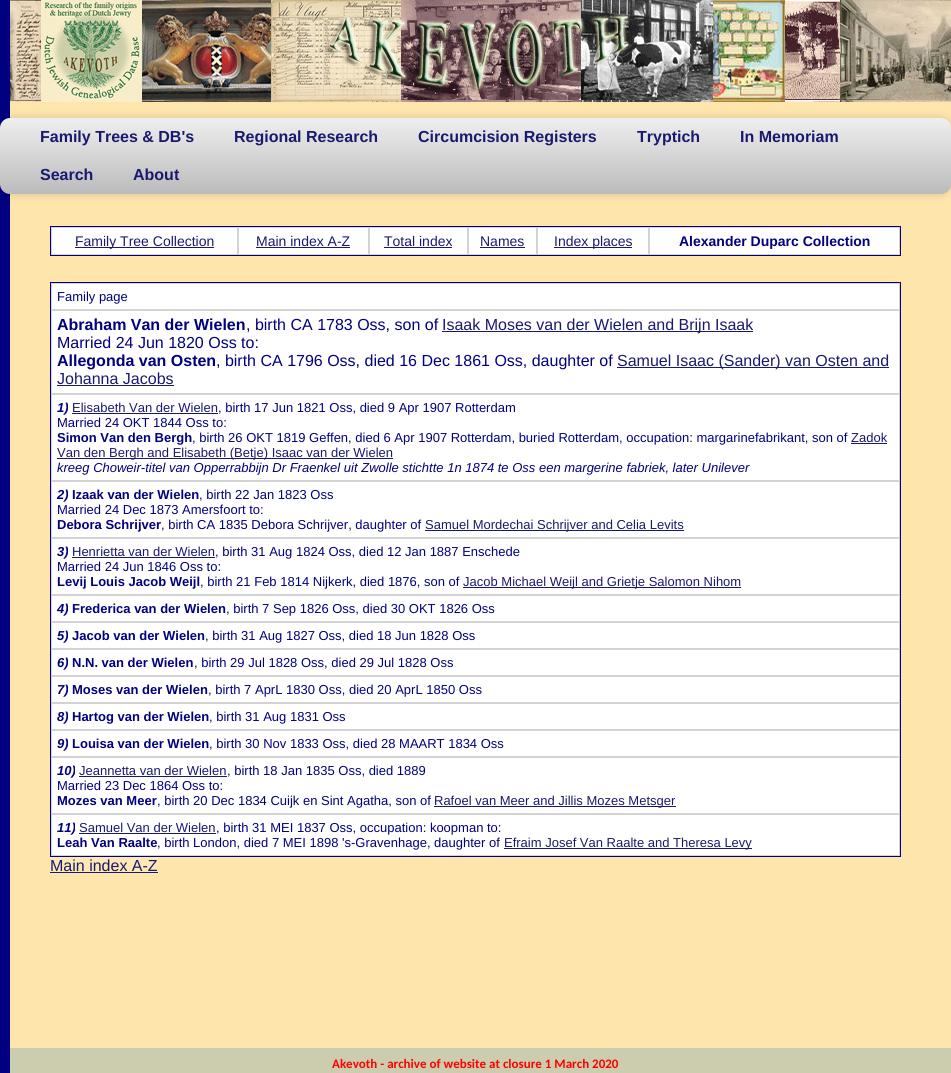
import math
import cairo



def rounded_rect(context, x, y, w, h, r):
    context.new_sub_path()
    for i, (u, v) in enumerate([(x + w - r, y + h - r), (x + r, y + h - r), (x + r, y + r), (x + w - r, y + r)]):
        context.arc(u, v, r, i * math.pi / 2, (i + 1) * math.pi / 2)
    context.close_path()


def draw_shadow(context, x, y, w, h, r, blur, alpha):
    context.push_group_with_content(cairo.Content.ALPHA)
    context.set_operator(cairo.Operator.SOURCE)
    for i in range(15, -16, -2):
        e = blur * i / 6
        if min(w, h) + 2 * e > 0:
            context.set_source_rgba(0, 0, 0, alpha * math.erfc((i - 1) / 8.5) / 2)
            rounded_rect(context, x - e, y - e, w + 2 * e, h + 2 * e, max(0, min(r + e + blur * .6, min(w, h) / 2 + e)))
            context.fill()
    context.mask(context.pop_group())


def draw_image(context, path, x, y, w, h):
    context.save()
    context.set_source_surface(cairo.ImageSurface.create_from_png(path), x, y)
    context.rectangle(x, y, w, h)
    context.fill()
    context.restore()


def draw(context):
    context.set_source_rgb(254 / 255, 229 / 255, 172 / 255)
    context.paint()
    draw_image(context, "images/1.png", 10, 0, 941, 102)
    context.set_source_rgb(0, 0, 128 / 255)
    context.rectangle(0, 0, 10, 1073)
    context.fill()
    context.set_source_rgb(0, 0, 0)
    draw_shadow(context, 0, 118, 951, 76, 10, 4.5, 0.15)
    gradient = cairo.LinearGradient(476, 118, 476, 194)
    gradient.add_color_stop_rgba(0, 239 / 255, 239 / 255, 239 / 255, 1)
    gradient.add_color_stop_rgba(1, 187 / 255, 187 / 255, 187 / 255, 1)
    context.set_source(gradient)
    rounded_rect(context, 0, 118, 951, 76, 10)
    context.fill()
    context.set_source_rgb(1, 1, 1)
    context.rectangle(52, 228, 847, 26)
    context.fill()
    context.rectangle(50.5, 226.5, 850, 29)
    context.set_source_rgb(0, 0, 128 / 255)
    context.set_line_width(1)
    context.stroke()
    context.rectangle(51.5, 227.5, 186, 27)
    context.set_source_rgb(211 / 255, 211 / 255, 211 / 255)
    context.stroke()
    context.set_source_rgb(25 / 255, 25 / 255, 112 / 255)
    context.rectangle(75, 247, 139, 1)
    context.fill()
    context.rectangle(238.5, 227.5, 130, 27)
    context.set_source_rgb(211 / 255, 211 / 255, 211 / 255)
    context.stroke()
    context.set_source_rgb(25 / 255, 25 / 255, 112 / 255)
    context.rectangle(256, 247, 94, 1)
    context.fill()
    context.rectangle(369.5, 227.5, 98, 27)
    context.set_source_rgb(211 / 255, 211 / 255, 211 / 255)
    context.stroke()
    context.set_source_rgb(25 / 255, 25 / 255, 112 / 255)
    context.rectangle(384, 247, 68, 1)
    context.fill()
    context.rectangle(468.5, 227.5, 68, 27)
    context.set_source_rgb(211 / 255, 211 / 255, 211 / 255)
    context.stroke()
    context.set_source_rgb(25 / 255, 25 / 255, 112 / 255)
    context.rectangle(480, 247, 45, 1)
    context.fill()
    context.rectangle(537.5, 227.5, 111, 27)
    context.set_source_rgb(211 / 255, 211 / 255, 211 / 255)
    context.stroke()
    context.set_source_rgb(25 / 255, 25 / 255, 112 / 255)
    context.rectangle(554, 247, 78, 1)
    context.fill()
    context.rectangle(649.5, 227.5, 250, 27)
    context.set_source_rgb(211 / 255, 211 / 255, 211 / 255)
    context.stroke()
    context.set_source_rgb(1, 1, 1)
    context.rectangle(52, 284, 847, 571)
    context.fill()
    context.rectangle(50.5, 282.5, 850, 574)
    context.set_source_rgb(0, 0, 128 / 255)
    context.stroke()
    context.rectangle(51.5, 283.5, 848, 26)
    context.set_source_rgb(211 / 255, 211 / 255, 211 / 255)
    context.stroke()
    context.rectangle(51.5, 310.5, 848, 83)
    context.stroke()
    context.set_source_rgb(25 / 255, 25 / 255, 112 / 255)
    context.rectangle(442, 331, 311, 1)
    context.fill()
    context.rectangle(617, 367, 272, 1)
    context.fill()
    context.rectangle(57, 385, 117, 1)
    context.fill()
    context.rectangle(51.5, 394.5, 848, 86)
    context.set_source_rgb(211 / 255, 211 / 255, 211 / 255)
    context.stroke()
    context.set_source_rgb(25 / 255, 25 / 255, 112 / 255)
    context.rectangle(72, 413, 146, 1)
    context.fill()
    context.rectangle(851, 443, 36, 1)
    context.fill()
    context.rectangle(57, 458, 336, 1)
    context.fill()
    context.rectangle(51.5, 481.5, 848, 56)
    context.set_source_rgb(211 / 255, 211 / 255, 211 / 255)
    context.stroke()
    context.set_source_rgb(25 / 255, 25 / 255, 112 / 255)
    context.rectangle(425, 530, 259, 1)
    context.fill()
    context.rectangle(51.5, 538.5, 848, 56)
    context.set_source_rgb(211 / 255, 211 / 255, 211 / 255)
    context.stroke()
    context.set_source_rgb(25 / 255, 25 / 255, 112 / 255)
    context.rectangle(72, 557, 143, 1)
    context.fill()
    context.rectangle(463, 587, 278, 1)
    context.fill()
    context.rectangle(51.5, 595.5, 848, 26)
    context.set_source_rgb(211 / 255, 211 / 255, 211 / 255)
    context.stroke()
    context.rectangle(51.5, 622.5, 848, 26)
    context.stroke()
    context.rectangle(51.5, 649.5, 848, 26)
    context.stroke()
    context.rectangle(51.5, 676.5, 848, 26)
    context.stroke()
    context.rectangle(51.5, 703.5, 848, 26)
    context.stroke()
    context.rectangle(51.5, 730.5, 848, 26)
    context.stroke()
    context.rectangle(51.5, 757.5, 848, 56)
    context.stroke()
    context.set_source_rgb(25 / 255, 25 / 255, 112 / 255)
    context.rectangle(79, 776, 148, 1)
    context.fill()
    context.rectangle(434, 806, 242, 1)
    context.fill()
    context.rectangle(51.5, 814.5, 848, 41)
    context.set_source_rgb(211 / 255, 211 / 255, 211 / 255)
    context.stroke()
    context.set_source_rgb(25 / 255, 25 / 255, 112 / 255)
    context.rectangle(79, 833, 137, 1)
    context.fill()
    context.rectangle(504, 848, 248, 1)
    context.fill()
    context.set_source_rgb(254 / 255, 232 / 255, 180 / 255)
    context.rectangle(50, 857, 108, 17)
    context.fill()
    context.set_source_rgb(25 / 255, 25 / 255, 112 / 255)
    context.rectangle(50, 872, 108, 1)
    context.fill()
    context.set_source_rgb(204 / 255, 205 / 255, 175 / 255)
    context.rectangle(10, 1048, 941, 25)
    context.fill()
    context.select_font_face("Liberation Sans", cairo.FontSlant.NORMAL, cairo.FontWeight.BOLD)
    context.set_font_size(16)
    context.set_source_rgb(25 / 255, 25 / 255, 112 / 255)
    context.move_to(40, 142)
    context.show_text("Family Trees & DB's")
    context.move_to(234, 142)
    context.show_text("Regional Research")
    context.move_to(418, 142)
    context.show_text("Circumcision Registers")
    context.move_to(637, 142)
    context.show_text("Tryptich")
    context.move_to(740, 142)
    context.show_text("In Memoriam")
    context.move_to(40, 180)
    context.show_text("Search")
    context.move_to(133, 180)
    context.show_text("About")
    context.select_font_face("Liberation Sans")
    context.set_font_size(14)
    context.move_to(75, 246)
    context.show_text("Family Tree Collection")
    context.move_to(256, 246)
    context.show_text("Main index A-Z")
    context.move_to(384, 246)
    context.show_text("Total index")
    context.move_to(480, 246)
    context.show_text("Names")
    context.move_to(554, 246)
    context.show_text("Index places")
    context.select_font_face("Liberation Sans", cairo.FontSlant.NORMAL, cairo.FontWeight.BOLD)
    context.set_source_rgb(0, 0, 128 / 255)
    context.move_to(679, 246)
    context.show_text("Alexander Duparc Collection")
    context.select_font_face("Liberation Sans")
    context.set_font_size(13)
    context.move_to(57, 301)
    context.show_text("Family page")
    context.select_font_face("Liberation Sans", cairo.FontSlant.NORMAL, cairo.FontWeight.BOLD)
    context.set_font_size(16)
    context.move_to(57, 330)
    context.show_text("Abraham Van der Wielen")
    context.select_font_face("Liberation Sans")
    context.move_to(246, 330)
    context.show_text(", birth CA 1783 Oss, son of")
    context.set_source_rgb(25 / 255, 25 / 255, 112 / 255)
    context.move_to(442, 330)
    context.show_text("Isaak Moses van der Wielen and Brijn Isaak")
    context.set_source_rgb(0, 0, 128 / 255)
    context.move_to(57, 348)
    context.show_text("Married 24 Jun 1820 Oss to:")
    context.select_font_face("Liberation Sans", cairo.FontSlant.NORMAL, cairo.FontWeight.BOLD)
    context.move_to(57, 366)
    context.show_text("Allegonda van Osten")
    context.select_font_face("Liberation Sans")
    context.move_to(216, 366)
    context.show_text(", birth CA 1796 Oss, died 16 Dec 1861 Oss, daughter of")
    context.set_source_rgb(25 / 255, 25 / 255, 112 / 255)
    context.move_to(617, 366)
    context.show_text("Samuel Isaac (Sander) van Osten and")
    context.move_to(57, 384)
    context.show_text("Johanna Jacobs")
    context.select_font_face("Liberation Sans", cairo.FontSlant.ITALIC, cairo.FontWeight.BOLD)
    context.set_font_size(13)
    context.set_source_rgb(0, 0, 128 / 255)
    context.move_to(57, 412)
    context.show_text("1)")
    context.select_font_face("Liberation Sans")
    context.set_source_rgb(25 / 255, 25 / 255, 112 / 255)
    context.move_to(72, 412)
    context.show_text("Elisabeth Van der Wielen")
    context.set_source_rgb(0, 0, 128 / 255)
    context.move_to(218, 412)
    context.show_text(", birth 17 Jun 1821 Oss, died 9 Apr 1907 Rotterdam")
    context.move_to(57, 427)
    context.show_text("Married 24 OKT 1844 Oss to:")
    context.select_font_face("Liberation Sans", cairo.FontSlant.NORMAL, cairo.FontWeight.BOLD)
    context.move_to(57, 442)
    context.show_text("Simon Van den Bergh")
    context.select_font_face("Liberation Sans")
    context.move_to(192, 442)
    context.show_text(", birth 26 OKT 1819 Geffen, died 6 Apr 1907 Rotterdam, buried Rotterdam, occupation: margarinefabrikant, son of")
    context.set_source_rgb(25 / 255, 25 / 255, 112 / 255)
    context.move_to(851, 442)
    context.show_text("Zadok")
    context.move_to(57, 457)
    context.show_text("Van den Bergh and Elisabeth (Betje) Isaac van der Wielen")
    context.select_font_face("Liberation Sans", cairo.FontSlant.ITALIC)
    context.set_source_rgb(0, 0, 128 / 255)
    context.move_to(57, 472)
    context.show_text("kreeg Choweir-titel van Opperrabbijn Dr Fraenkel uit Zwolle stichtte 1n 1874 te Oss een margerine fabriek, later Unilever")
    context.select_font_face("Liberation Sans", cairo.FontSlant.ITALIC, cairo.FontWeight.BOLD)
    context.move_to(57, 499)
    context.show_text("2)")
    context.select_font_face("Liberation Sans", cairo.FontSlant.NORMAL, cairo.FontWeight.BOLD)
    context.move_to(72, 499)
    context.show_text("Izaak van der Wielen")
    context.select_font_face("Liberation Sans")
    context.move_to(199, 499)
    context.show_text(", birth 22 Jan 1823 Oss")
    context.move_to(57, 514)
    context.show_text("Married 24 Dec 1873 Amersfoort to:")
    context.select_font_face("Liberation Sans", cairo.FontSlant.NORMAL, cairo.FontWeight.BOLD)
    context.move_to(57, 529)
    context.show_text("Debora Schrijver")
    context.select_font_face("Liberation Sans")
    context.move_to(161, 529)
    context.show_text(", birth CA 1835 Debora Schrijver, daughter of")
    context.set_source_rgb(25 / 255, 25 / 255, 112 / 255)
    context.move_to(425, 529)
    context.show_text("Samuel Mordechai Schrijver and Celia Levits")
    context.select_font_face("Liberation Sans", cairo.FontSlant.ITALIC, cairo.FontWeight.BOLD)
    context.set_source_rgb(0, 0, 128 / 255)
    context.move_to(57, 556)
    context.show_text("3)")
    context.select_font_face("Liberation Sans")
    context.set_source_rgb(25 / 255, 25 / 255, 112 / 255)
    context.move_to(72, 556)
    context.show_text("Henrietta van der Wielen")
    context.set_source_rgb(0, 0, 128 / 255)
    context.move_to(215, 556)
    context.show_text(", birth 31 Aug 1824 Oss, died 12 Jan 1887 Enschede")
    context.move_to(57, 571)
    context.show_text("Married 24 Jun 1846 Oss to:")
    context.select_font_face("Liberation Sans", cairo.FontSlant.NORMAL, cairo.FontWeight.BOLD)
    context.move_to(57, 586)
    context.show_text("Levij Louis Jacob Weijl")
    context.select_font_face("Liberation Sans")
    context.move_to(200, 586)
    context.show_text(", birth 21 Feb 1814 Nijkerk, died 1876, son of")
    context.set_source_rgb(25 / 255, 25 / 255, 112 / 255)
    context.move_to(463, 586)
    context.show_text("Jacob Michael Weijl and Grietje Salomon Nihom")
    context.select_font_face("Liberation Sans", cairo.FontSlant.ITALIC, cairo.FontWeight.BOLD)
    context.set_source_rgb(0, 0, 128 / 255)
    context.move_to(57, 613)
    context.show_text("4)")
    context.select_font_face("Liberation Sans", cairo.FontSlant.NORMAL, cairo.FontWeight.BOLD)
    context.move_to(72, 613)
    context.show_text("Frederica van der Wielen")
    context.select_font_face("Liberation Sans")
    context.move_to(226, 613)
    context.show_text(", birth 7 Sep 1826 Oss, died 30 OKT 1826 Oss")
    context.select_font_face("Liberation Sans", cairo.FontSlant.ITALIC, cairo.FontWeight.BOLD)
    context.move_to(57, 640)
    context.show_text("5)")
    context.select_font_face("Liberation Sans", cairo.FontSlant.NORMAL, cairo.FontWeight.BOLD)
    context.move_to(72, 640)
    context.show_text("Jacob van der Wielen")
    context.select_font_face("Liberation Sans")
    context.move_to(205, 640)
    context.show_text(", birth 31 Aug 1827 Oss, died 18 Jun 1828 Oss")
    context.select_font_face("Liberation Sans", cairo.FontSlant.ITALIC, cairo.FontWeight.BOLD)
    context.move_to(57, 667)
    context.show_text("6)")
    context.select_font_face("Liberation Sans", cairo.FontSlant.NORMAL, cairo.FontWeight.BOLD)
    context.move_to(72, 667)
    context.show_text("N.N. van der Wielen")
    context.select_font_face("Liberation Sans")
    context.move_to(194, 667)
    context.show_text(", birth 29 Jul 1828 Oss, died 29 Jul 1828 Oss")
    context.select_font_face("Liberation Sans", cairo.FontSlant.ITALIC, cairo.FontWeight.BOLD)
    context.move_to(57, 694)
    context.show_text("7)")
    context.select_font_face("Liberation Sans", cairo.FontSlant.NORMAL, cairo.FontWeight.BOLD)
    context.move_to(72, 694)
    context.show_text("Moses van der Wielen")
    context.select_font_face("Liberation Sans")
    context.move_to(208, 694)
    context.show_text(", birth 7 AprL 1830 Oss, died 20 AprL 1850 Oss")
    context.select_font_face("Liberation Sans", cairo.FontSlant.ITALIC, cairo.FontWeight.BOLD)
    context.move_to(57, 721)
    context.show_text("8)")
    context.select_font_face("Liberation Sans", cairo.FontSlant.NORMAL, cairo.FontWeight.BOLD)
    context.move_to(72, 721)
    context.show_text("Hartog van der Wielen")
    context.select_font_face("Liberation Sans")
    context.move_to(209, 721)
    context.show_text(", birth 31 Aug 1831 Oss")
    context.select_font_face("Liberation Sans", cairo.FontSlant.ITALIC, cairo.FontWeight.BOLD)
    context.move_to(57, 748)
    context.show_text("9)")
    context.select_font_face("Liberation Sans", cairo.FontSlant.NORMAL, cairo.FontWeight.BOLD)
    context.move_to(72, 748)
    context.show_text("Louisa van der Wielen")
    context.select_font_face("Liberation Sans")
    context.move_to(209, 748)
    context.show_text(", birth 30 Nov 1833 Oss, died 28 MAART 1834 Oss")
    context.select_font_face("Liberation Sans", cairo.FontSlant.ITALIC, cairo.FontWeight.BOLD)
    context.move_to(57, 775)
    context.show_text("10)")
    context.select_font_face("Liberation Sans")
    context.set_source_rgb(25 / 255, 25 / 255, 112 / 255)
    context.move_to(79, 775)
    context.show_text("Jeannetta van der Wielen")
    context.set_source_rgb(0, 0, 128 / 255)
    context.move_to(227, 775)
    context.show_text(", birth 18 Jan 1835 Oss, died 1889")
    context.move_to(57, 790)
    context.show_text("Married 23 Dec 1864 Oss to:")
    context.select_font_face("Liberation Sans", cairo.FontSlant.NORMAL, cairo.FontWeight.BOLD)
    context.move_to(57, 805)
    context.show_text("Mozes van Meer")
    context.select_font_face("Liberation Sans")
    context.move_to(157, 805)
    context.show_text(", birth 20 Dec 1834 Cuijk en Sint Agatha, son of")
    context.set_source_rgb(25 / 255, 25 / 255, 112 / 255)
    context.move_to(434, 805)
    context.show_text("Rafoel van Meer and Jillis Mozes Metsger")
    context.select_font_face("Liberation Sans", cairo.FontSlant.ITALIC, cairo.FontWeight.BOLD)
    context.set_source_rgb(0, 0, 128 / 255)
    context.move_to(57, 832)
    context.show_text("11)")
    context.select_font_face("Liberation Sans")
    context.set_source_rgb(25 / 255, 25 / 255, 112 / 255)
    context.move_to(79, 832)
    context.show_text("Samuel Van der Wielen")
    context.set_source_rgb(0, 0, 128 / 255)
    context.move_to(216, 832)
    context.show_text(", birth 31 MEI 1837 Oss, occupation: koopman to:")
    context.select_font_face("Liberation Sans", cairo.FontSlant.NORMAL, cairo.FontWeight.BOLD)
    context.move_to(57, 847)
    context.show_text("Leah Van Raalte")
    context.select_font_face("Liberation Sans")
    context.move_to(157, 847)
    context.show_text(", birth London, died 7 MEI 1898 's-Gravenhage, daughter of")
    context.set_source_rgb(25 / 255, 25 / 255, 112 / 255)
    context.move_to(504, 847)
    context.show_text("Efraim Josef Van Raalte and Theresa Levy")
    context.set_font_size(16)
    context.move_to(50, 871)
    context.show_text("Main index A-Z")
    context.select_font_face("Carlito", cairo.FontSlant.NORMAL, cairo.FontWeight.BOLD)
    context.set_font_size(13)
    context.set_source_rgb(1, 0, 0)
    context.move_to(332, 1068)
    context.show_text("Akevoth - archive of website at closure 1 March 2020")


surface = cairo.ImageSurface(cairo.Format.RGB24, 951, 1073)
context = cairo.Context(surface)
options = cairo.FontOptions()
options.set_hint_metrics(cairo.HintMetrics.OFF)
options.set_hint_style(cairo.HintStyle.NONE)
context.set_font_options(options)
context.set_miter_limit(4)
draw(context)
surface.write_to_png("out.png")
